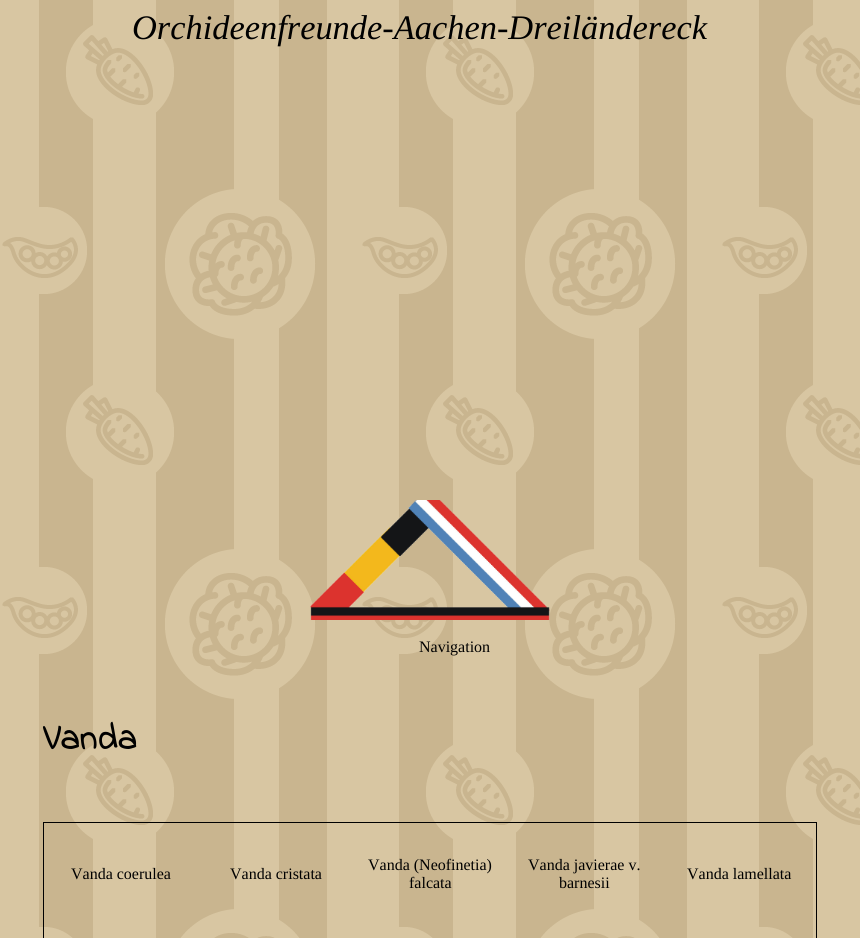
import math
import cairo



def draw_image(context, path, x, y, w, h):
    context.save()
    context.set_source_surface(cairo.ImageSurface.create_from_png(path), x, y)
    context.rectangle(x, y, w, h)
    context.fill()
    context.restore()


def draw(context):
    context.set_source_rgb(1, 1, 1)
    context.paint()
    draw_image(context, "images/1.png", 0, 0, 860, 938)
    draw_image(context, "images/2.png", 310, 500, 240, 120)
    context.rectangle(43.5, 822.5, 773, 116)
    context.set_source_rgb(0, 0, 0)
    context.set_line_width(1)
    context.stroke()
    context.select_font_face("Liberation Serif", cairo.FontSlant.ITALIC)
    context.set_font_size(34.4)
    context.move_to(132, 39)
    context.show_text("Orchideenfreunde-Aachen-Dreiländereck")
    context.select_font_face("Liberation Serif")
    context.set_font_size(16)
    context.move_to(419, 652)
    context.show_text("Navigation")
    context.select_font_face("Indie Flower", cairo.FontSlant.NORMAL, cairo.FontWeight.BOLD)
    context.set_font_size(36)
    context.move_to(43, 749)
    context.show_text("Vanda")
    context.select_font_face("Liberation Serif")
    context.set_font_size(16)
    context.move_to(71, 879)
    context.show_text("Vanda coerulea")
    context.move_to(230, 879)
    context.show_text("Vanda cristata")
    context.move_to(368, 870)
    context.show_text("Vanda (Neofinetia)")
    context.move_to(409, 888)
    context.show_text("falcata")
    context.move_to(528, 870)
    context.show_text("Vanda javierae v.")
    context.move_to(559, 888)
    context.show_text("barnesii")
    context.move_to(687, 879)
    context.show_text("Vanda lamellata")


surface = cairo.ImageSurface(cairo.Format.RGB24, 860, 938)
context = cairo.Context(surface)
options = cairo.FontOptions()
options.set_hint_metrics(cairo.HintMetrics.OFF)
options.set_hint_style(cairo.HintStyle.NONE)
context.set_font_options(options)
context.set_miter_limit(4)
draw(context)
surface.write_to_png("out.png")
